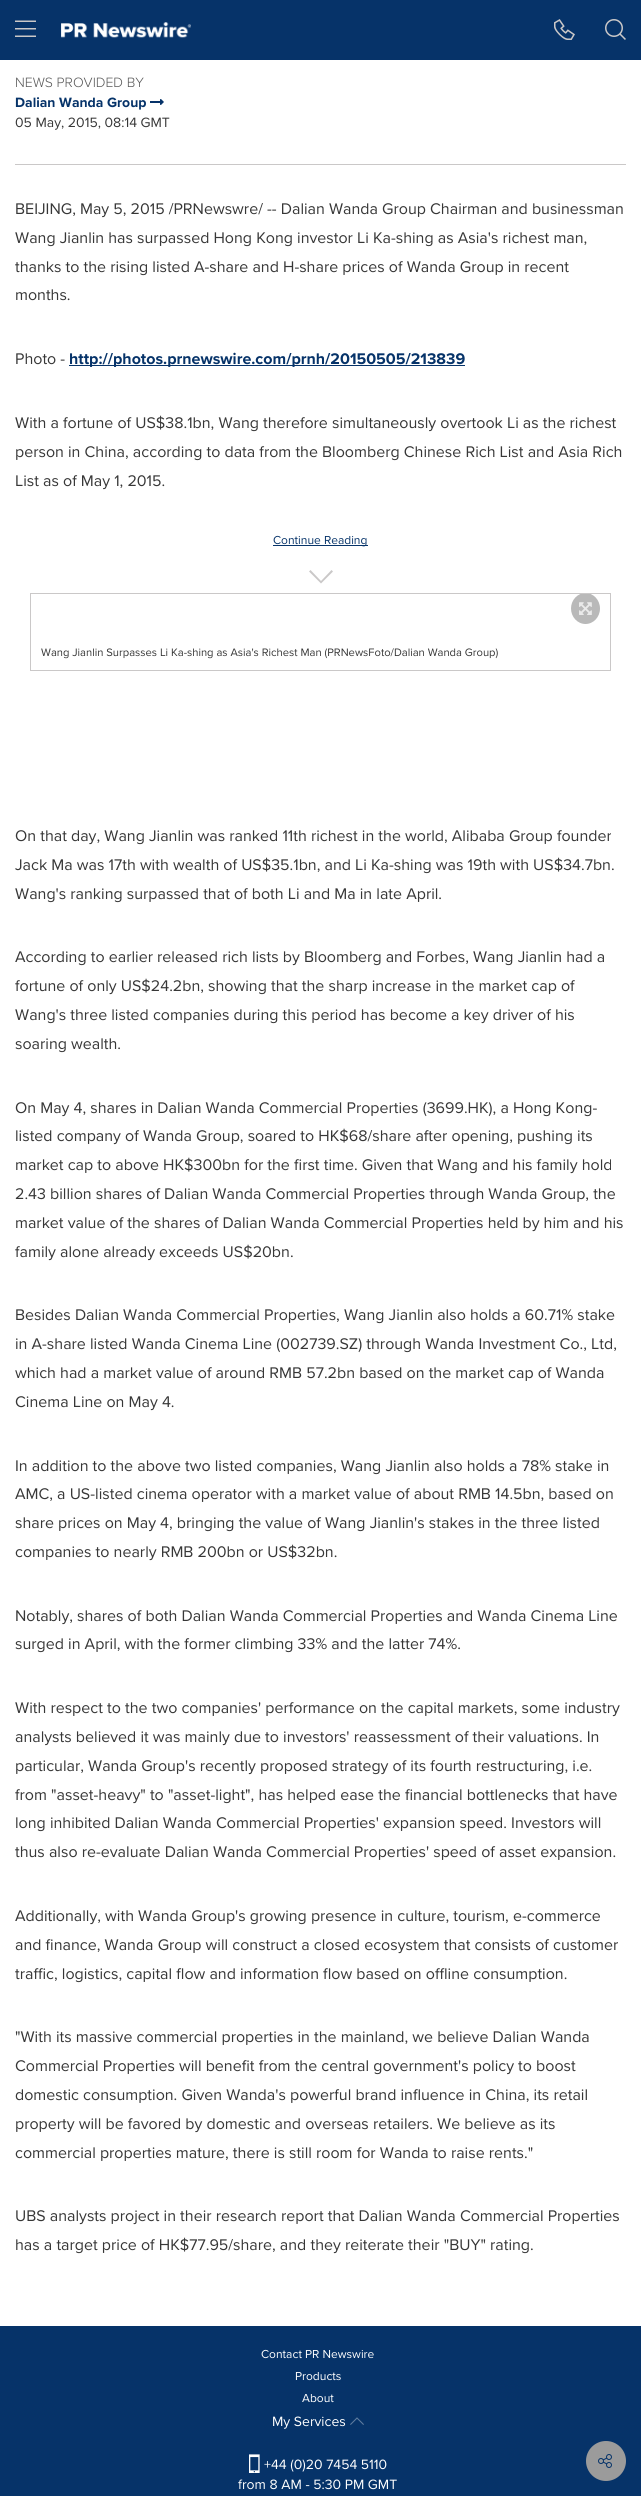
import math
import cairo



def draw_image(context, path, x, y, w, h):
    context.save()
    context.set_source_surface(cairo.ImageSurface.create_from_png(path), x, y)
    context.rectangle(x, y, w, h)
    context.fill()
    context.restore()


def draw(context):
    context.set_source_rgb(1, 1, 1)
    context.paint()
    context.set_source_rgb(6 / 255, 51 / 255, 105 / 255)
    context.rectangle(0, 0, 641, 60)
    context.fill()
    draw_image(context, "images/1.png", 15, 20, 21, 17)
    draw_image(context, "images/2.png", 61, 22, 130, 16)
    draw_image(context, "images/3.png", 554, 19, 21, 21)
    draw_image(context, "images/4.png", 605, 19, 21, 21)
    draw_image(context, "images/5.png", 150, 99, 14, 6)
    context.rectangle(0, 2326, 641, 170)
    context.fill()
    context.set_source_rgb(155 / 255, 155 / 255, 155 / 255)
    context.arc(606, 2461, 20, 0, 2 * math.pi)
    context.fill()
    draw_image(context, "images/6.png", 598, 2454, 14, 14)
    context.set_source_rgb(202 / 255, 200 / 255, 200 / 255)
    context.rectangle(15, 164, 611, 1)
    context.fill()
    context.set_source_rgb(6 / 255, 51 / 255, 105 / 255)
    context.rectangle(69, 365, 396, 1)
    context.fill()
    context.rectangle(273, 545, 95, 1)
    context.fill()
    context.set_source_rgb(202 / 255, 200 / 255, 200 / 255)
    context.new_path()
    context.move_to(321, 583.5)
    context.line_to(309, 571.5)
    context.line_to(310.5, 570)
    context.line_to(321, 581)
    context.line_to(331.5, 570)
    context.line_to(333, 571.5)
    context.close_path()
    context.fill()
    context.rectangle(30.5, 593.5, 580, 77)
    context.set_line_width(1)
    context.stroke()
    context.save()
    context.rectangle(31, 594, 579, 40)
    context.clip()
    context.set_source_rgb(185 / 255, 185 / 255, 185 / 255)
    context.new_path()
    context.move_to(585.5, 593)
    context.curve_to(593.5, 593, 600, 600, 600, 608.5)
    context.curve_to(600, 617, 593.5, 624, 585.5, 624)
    context.curve_to(577.5, 624, 571, 617, 571, 608.5)
    context.curve_to(571, 600, 577.5, 593, 585.5, 593)
    context.close_path()
    context.fill()
    context.restore()
    draw_image(context, "images/7.png", 579, 602, 13, 13)
    draw_image(context, "images/8.png", 350, 2417, 14, 8)
    draw_image(context, "images/9.png", 249, 2454, 11, 19)
    context.select_font_face("Proxima Nova Light")
    context.set_font_size(14)
    context.set_source_rgb(87 / 255, 87 / 255, 87 / 255)
    context.move_to(15, 87)
    context.show_text("NEWS PROVIDED BY")
    context.select_font_face("Proxima Nova", cairo.FontSlant.NORMAL, cairo.FontWeight.BOLD)
    context.set_source_rgb(6 / 255, 51 / 255, 105 / 255)
    context.move_to(15, 107)
    context.show_text("Dalian Wanda Group")
    context.select_font_face("Proxima Nova")
    context.set_source_rgb(55 / 255, 55 / 255, 55 / 255)
    context.move_to(15, 127)
    context.show_text("05 May, 2015, 08:14 GMT")
    context.set_font_size(16)
    context.move_to(15, 214)
    context.show_text("BEIJING, May 5, 2015 /PRNewswre/ -- Dalian Wanda Group Chairman and businessman")
    context.move_to(15, 243)
    context.show_text("Wang Jianlin has surpassed Hong Kong investor Li Ka-shing as Asia's richest man,")
    context.move_to(15, 272)
    context.show_text("thanks to the rising listed A-share and H-share prices of Wanda Group in recent")
    context.move_to(15, 300)
    context.show_text("months.")
    context.move_to(15, 364)
    context.show_text("Photo -")
    context.select_font_face("Proxima Nova", cairo.FontSlant.NORMAL, cairo.FontWeight.BOLD)
    context.set_source_rgb(6 / 255, 51 / 255, 105 / 255)
    context.move_to(69, 364)
    context.show_text("http://photos.prnewswire.com/prnh/20150505/213839")
    context.select_font_face("Proxima Nova")
    context.set_source_rgb(55 / 255, 55 / 255, 55 / 255)
    context.move_to(15, 428)
    context.show_text("With a fortune of US$38.1bn, Wang therefore simultaneously overtook Li as the richest")
    context.move_to(15, 457)
    context.show_text("person in China, according to data from the Bloomberg Chinese Rich List and Asia Rich")
    context.move_to(15, 486)
    context.show_text("List as of May 1, 2015.")
    context.set_font_size(12)
    context.set_source_rgb(6 / 255, 51 / 255, 105 / 255)
    context.move_to(273, 544)
    context.show_text("Continue Reading")
    context.set_font_size(11.2)
    context.set_source_rgb(55 / 255, 55 / 255, 55 / 255)
    context.move_to(41, 656)
    context.show_text("Wang Jianlin Surpasses Li Ka-shing as Asia's Richest Man (PRNewsFoto/Dalian Wanda Group)")
    context.set_font_size(16)
    context.move_to(15, 841)
    context.show_text("On that day, Wang Jianlin was ranked 11th richest in the world, Alibaba Group founder")
    context.move_to(15, 870)
    context.show_text("Jack Ma was 17th with wealth of US$35.1bn, and Li Ka-shing was 19th with US$34.7bn.")
    context.move_to(15, 899)
    context.show_text("Wang's ranking surpassed that of both Li and Ma in late April.")
    context.move_to(15, 962)
    context.show_text("According to earlier released rich lists by Bloomberg and Forbes, Wang Jianlin had a")
    context.move_to(15, 991)
    context.show_text("fortune of only US$24.2bn, showing that the sharp increase in the market cap of")
    context.move_to(15, 1020)
    context.show_text("Wang's three listed companies during this period has become a key driver of his")
    context.move_to(15, 1049)
    context.show_text("soaring wealth.")
    context.move_to(15, 1113)
    context.show_text("On May 4, shares in Dalian Wanda Commercial Properties (3699.HK), a Hong Kong-")
    context.move_to(15, 1141)
    context.show_text("listed company of Wanda Group, soared to HK$68/share after opening, pushing its")
    context.move_to(15, 1170)
    context.show_text("market cap to above HK$300bn for the first time. Given that Wang and his family hold")
    context.move_to(15, 1199)
    context.show_text("2.43 billion shares of Dalian Wanda Commercial Properties through Wanda Group, the")
    context.move_to(15, 1228)
    context.show_text("market value of the shares of Dalian Wanda Commercial Properties held by him and his")
    context.move_to(15, 1257)
    context.show_text("family alone already exceeds US$20bn.")
    context.move_to(15, 1320)
    context.show_text("Besides Dalian Wanda Commercial Properties, Wang Jianlin also holds a 60.71% stake")
    context.move_to(15, 1349)
    context.show_text("in A-share listed Wanda Cinema Line (002739.SZ) through Wanda Investment Co., Ltd,")
    context.move_to(15, 1378)
    context.show_text("which had a market value of around RMB 57.2bn based on the market cap of Wanda")
    context.move_to(15, 1407)
    context.show_text("Cinema Line on May 4.")
    context.move_to(15, 1471)
    context.show_text("In addition to the above two listed companies, Wang Jianlin also holds a 78% stake in")
    context.move_to(15, 1499)
    context.show_text("AMC, a US-listed cinema operator with a market value of about RMB 14.5bn, based on")
    context.move_to(15, 1528)
    context.show_text("share prices on May 4, bringing the value of Wang Jianlin's stakes in the three listed")
    context.move_to(15, 1557)
    context.show_text("companies to nearly RMB 200bn or US$32bn.")
    context.move_to(15, 1621)
    context.show_text("Notably, shares of both Dalian Wanda Commercial Properties and Wanda Cinema Line")
    context.move_to(15, 1649)
    context.show_text("surged in April, with the former climbing 33% and the latter 74%.")
    context.move_to(15, 1713)
    context.show_text("With respect to the two companies' performance on the capital markets, some industry")
    context.move_to(15, 1742)
    context.show_text("analysts believed it was mainly due to investors' reassessment of their valuations. In")
    context.move_to(15, 1771)
    context.show_text("particular, Wanda Group's recently proposed strategy of its fourth restructuring, i.e.")
    context.move_to(15, 1800)
    context.show_text("from \"asset-heavy\" to \"asset-light\", has helped ease the financial bottlenecks that have")
    context.move_to(15, 1828)
    context.show_text("long inhibited Dalian Wanda Commercial Properties' expansion speed. Investors will")
    context.move_to(15, 1857)
    context.show_text("thus also re-evaluate Dalian Wanda Commercial Properties' speed of asset expansion.")
    context.move_to(15, 1921)
    context.show_text("Additionally, with Wanda Group's growing presence in culture, tourism, e-commerce")
    context.move_to(15, 1950)
    context.show_text("and finance, Wanda Group will construct a closed ecosystem that consists of customer")
    context.move_to(15, 1979)
    context.show_text("traffic, logistics, capital flow and information flow based on offline consumption.")
    context.move_to(15, 2042)
    context.show_text("\"With its massive commercial properties in the mainland, we believe Dalian Wanda")
    context.move_to(15, 2071)
    context.show_text("Commercial Properties will benefit from the central government's policy to boost")
    context.move_to(15, 2100)
    context.show_text("domestic consumption. Given Wanda's powerful brand influence in China, its retail")
    context.move_to(15, 2129)
    context.show_text("property will be favored by domestic and overseas retailers. We believe as its")
    context.move_to(15, 2158)
    context.show_text("commercial properties mature, there is still room for Wanda to raise rents.\"")
    context.move_to(15, 2221)
    context.show_text("UBS analysts project in their research report that Dalian Wanda Commercial Properties")
    context.move_to(15, 2250)
    context.show_text("has a target price of HK$77.95/share, and they reiterate their \"BUY\" rating.")
    context.set_font_size(12)
    context.set_source_rgb(1, 1, 1)
    context.move_to(261, 2358)
    context.show_text("Contact PR Newswire")
    context.move_to(295, 2380)
    context.show_text("Products")
    context.move_to(302, 2402)
    context.show_text("About")
    context.set_font_size(14)
    context.move_to(272, 2426)
    context.show_text("My Services")
    context.move_to(264, 2469)
    context.show_text("+44 (0)20 7454 5110")
    context.move_to(238, 2489)
    context.show_text("from 8 AM - 5:30 PM GMT")


surface = cairo.ImageSurface(cairo.Format.RGB24, 641, 2496)
context = cairo.Context(surface)
options = cairo.FontOptions()
options.set_hint_metrics(cairo.HintMetrics.OFF)
options.set_hint_style(cairo.HintStyle.NONE)
context.set_font_options(options)
context.set_miter_limit(4)
draw(context)
surface.write_to_png("out.png")
